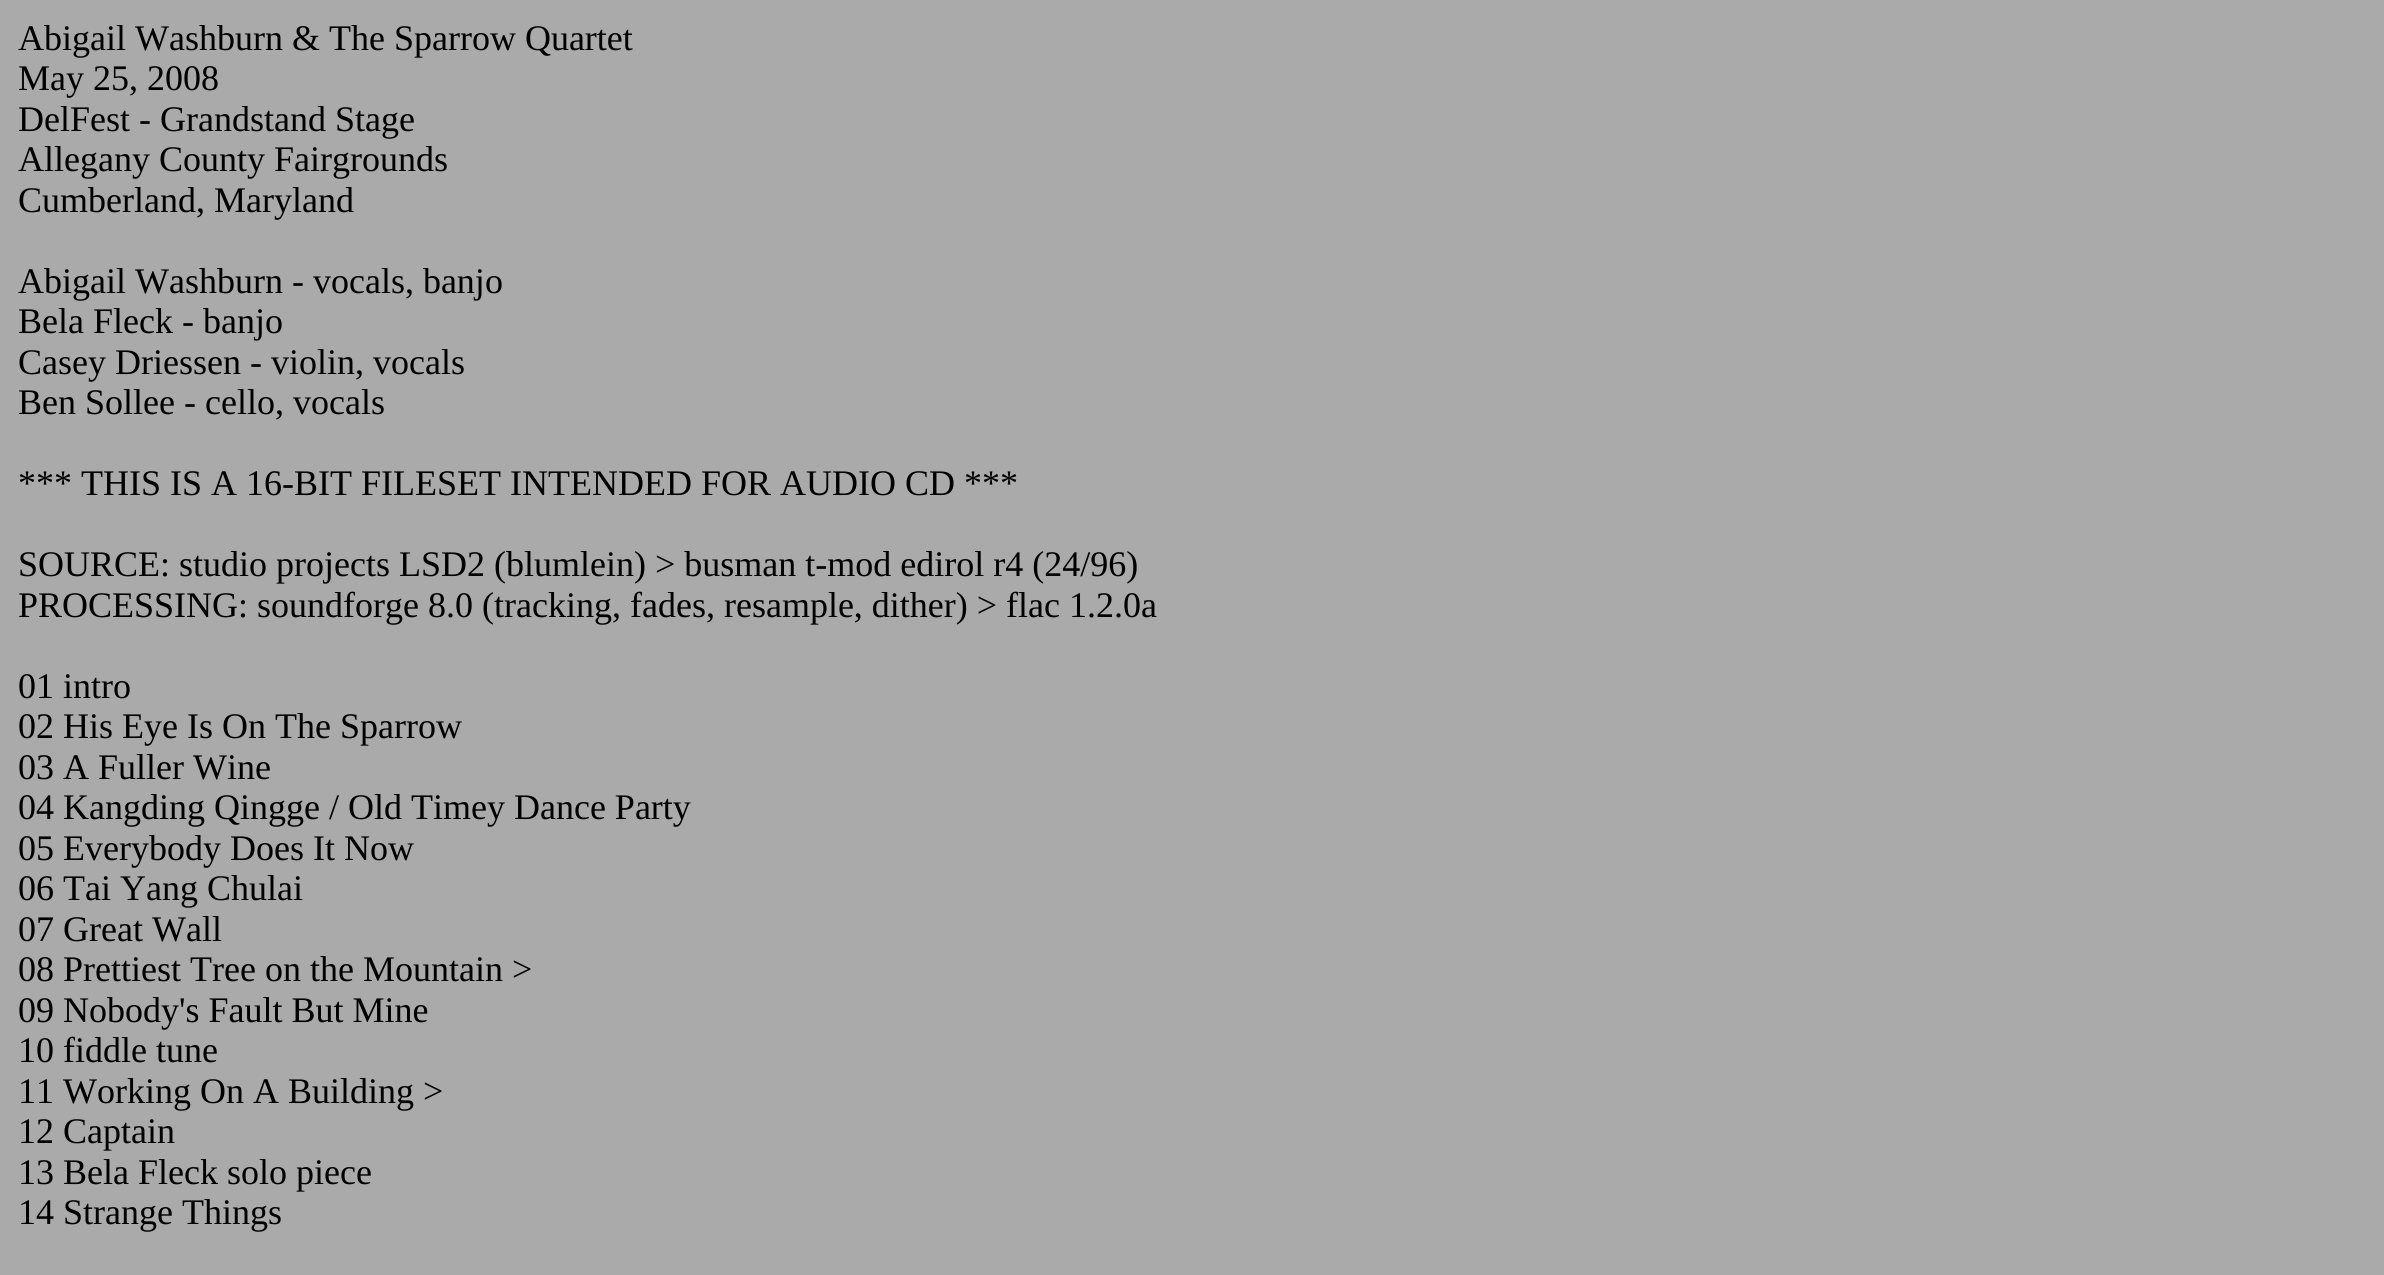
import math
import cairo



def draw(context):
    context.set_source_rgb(170 / 255, 170 / 255, 170 / 255)
    context.paint()
    context.select_font_face("Liberation Serif")
    context.set_font_size(36)
    context.set_source_rgb(0, 0, 0)
    context.move_to(18, 50)
    context.show_text("Abigail Washburn & The Sparrow Quartet")
    context.move_to(18, 90)
    context.show_text("May 25, 2008")
    context.move_to(18, 131)
    context.show_text("DelFest - Grandstand Stage")
    context.move_to(18, 171)
    context.show_text("Allegany County Fairgrounds")
    context.move_to(18, 212)
    context.show_text("Cumberland, Maryland")
    context.move_to(18, 293)
    context.show_text("Abigail Washburn - vocals, banjo")
    context.move_to(18, 333)
    context.show_text("Bela Fleck - banjo")
    context.move_to(18, 374)
    context.show_text("Casey Driessen - violin, vocals")
    context.move_to(18, 414)
    context.show_text("Ben Sollee - cello, vocals")
    context.move_to(18, 495)
    context.show_text("*** THIS IS A 16-BIT FILESET INTENDED FOR AUDIO CD ***")
    context.move_to(18, 576)
    context.show_text("SOURCE: studio projects LSD2 (blumlein) > busman t-mod edirol r4 (24/96)")
    context.move_to(18, 617)
    context.show_text("PROCESSING: soundforge 8.0 (tracking, fades, resample, dither) > flac 1.2.0a")
    context.move_to(18, 698)
    context.show_text("01 intro")
    context.move_to(18, 738)
    context.show_text("02 His Eye Is On The Sparrow")
    context.move_to(18, 779)
    context.show_text("03 A Fuller Wine")
    context.move_to(18, 819)
    context.show_text("04 Kangding Qingge / Old Timey Dance Party")
    context.move_to(18, 860)
    context.show_text("05 Everybody Does It Now")
    context.move_to(18, 900)
    context.show_text("06 Tai Yang Chulai")
    context.move_to(18, 941)
    context.show_text("07 Great Wall")
    context.move_to(18, 981)
    context.show_text("08 Prettiest Tree on the Mountain >")
    context.move_to(18, 1022)
    context.show_text("09 Nobody's Fault But Mine")
    context.move_to(18, 1062)
    context.show_text("10 fiddle tune")
    context.move_to(18, 1103)
    context.show_text("11 Working On A Building >")
    context.move_to(18, 1143)
    context.show_text("12 Captain")
    context.move_to(18, 1184)
    context.show_text("13 Bela Fleck solo piece")
    context.move_to(18, 1224)
    context.show_text("14 Strange Things")


surface = cairo.ImageSurface(cairo.Format.RGB24, 2384, 1275)
context = cairo.Context(surface)
options = cairo.FontOptions()
options.set_hint_metrics(cairo.HintMetrics.OFF)
options.set_hint_style(cairo.HintStyle.NONE)
context.set_font_options(options)
context.set_miter_limit(4)
draw(context)
surface.write_to_png("out.png")
